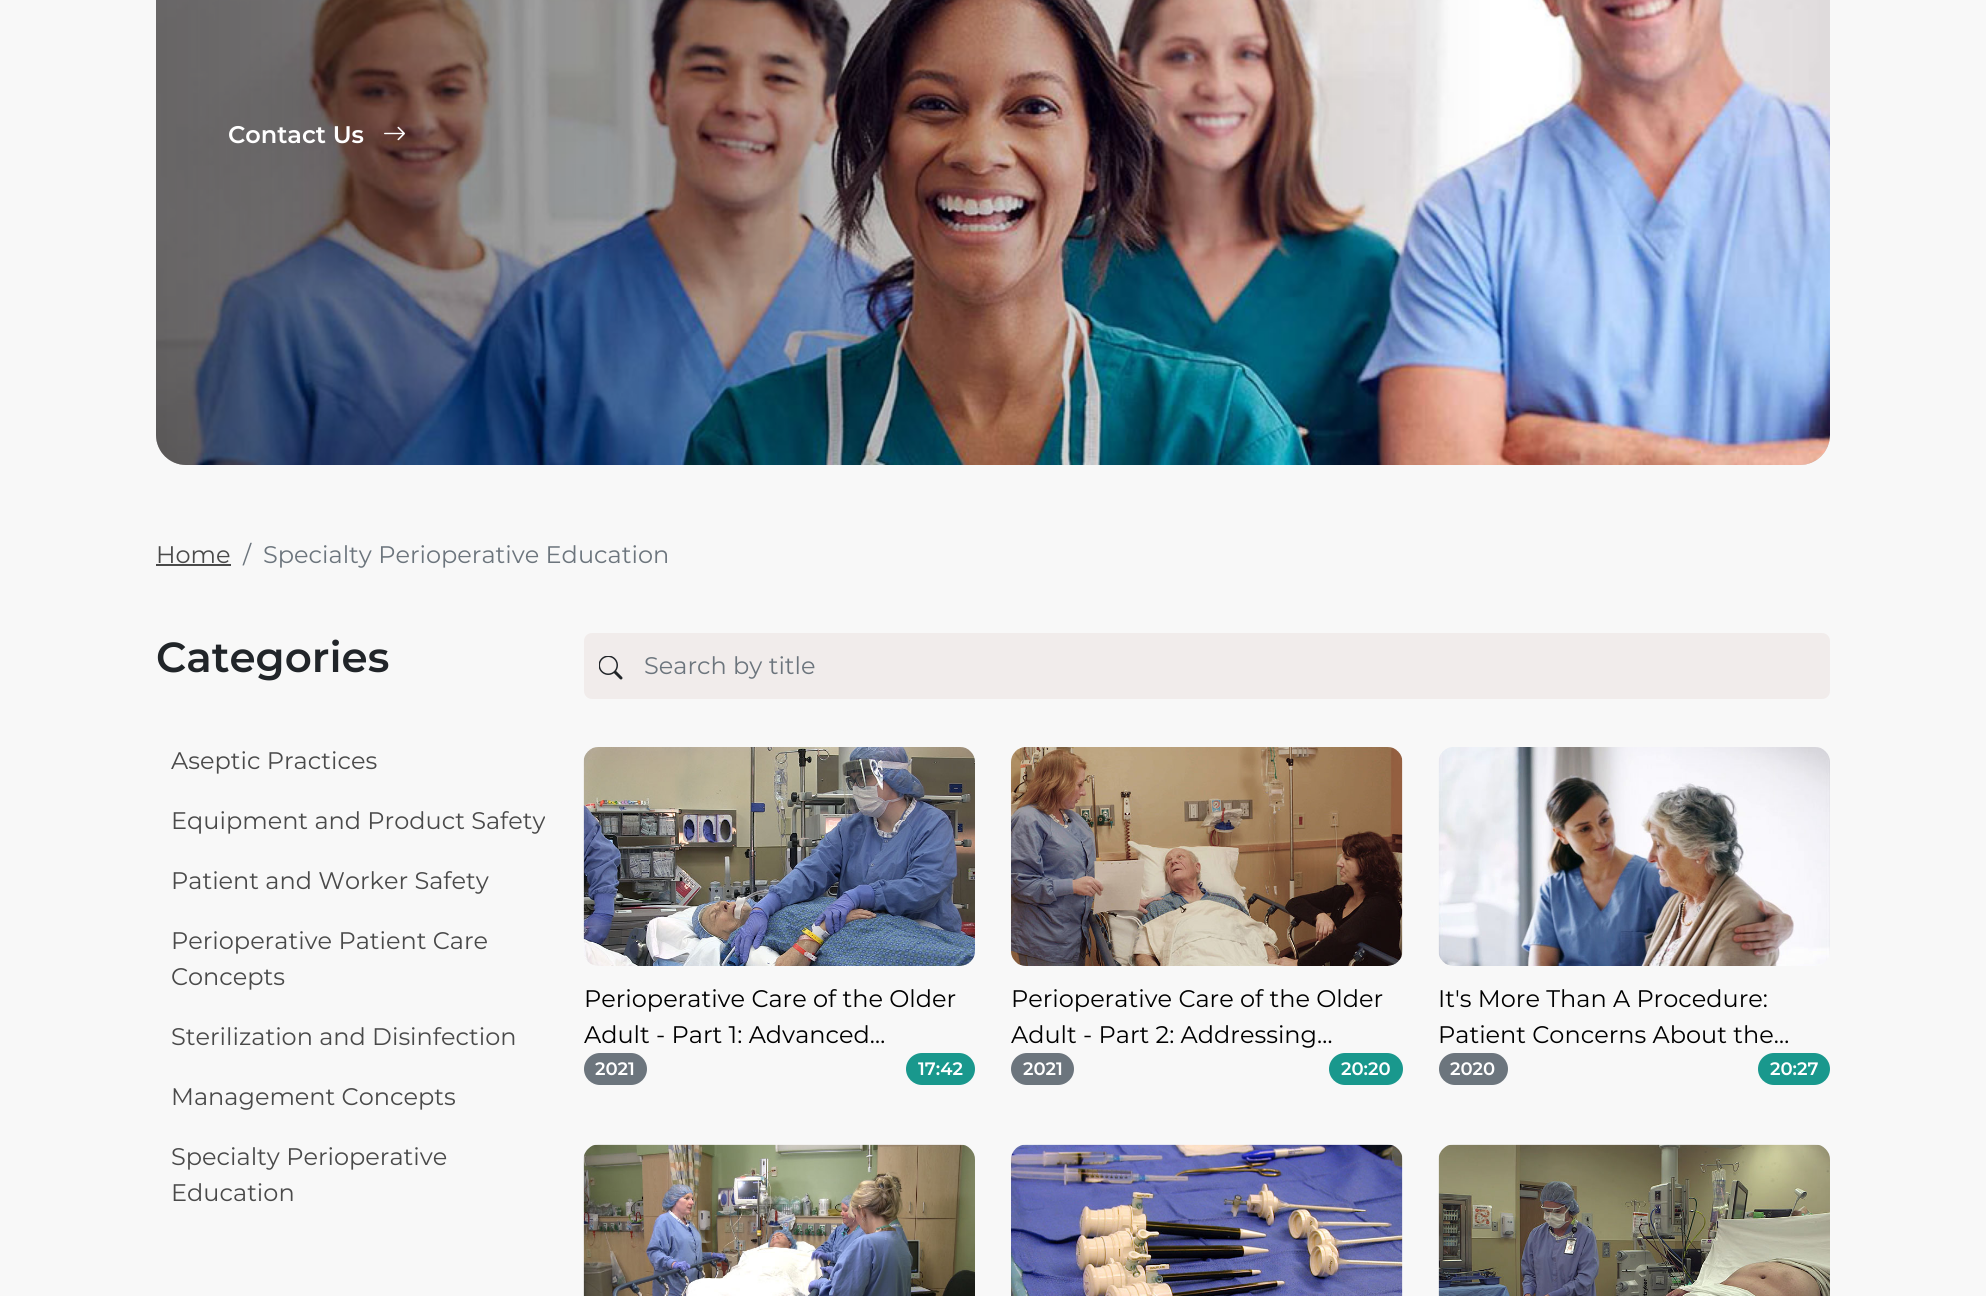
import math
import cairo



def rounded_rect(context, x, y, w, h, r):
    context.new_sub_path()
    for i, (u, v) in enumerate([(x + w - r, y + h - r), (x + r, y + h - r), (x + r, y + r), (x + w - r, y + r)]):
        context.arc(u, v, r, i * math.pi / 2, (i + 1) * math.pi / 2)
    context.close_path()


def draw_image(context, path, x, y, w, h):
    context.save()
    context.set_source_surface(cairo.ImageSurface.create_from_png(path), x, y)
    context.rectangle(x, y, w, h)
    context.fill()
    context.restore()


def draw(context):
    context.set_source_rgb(248 / 255, 248 / 255, 248 / 255)
    context.paint()
    context.set_source_rgb(210 / 255, 206 / 255, 207 / 255)
    rounded_rect(context, 156, -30, 1674, 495, 30)
    context.fill()
    draw_image(context, "images/1.png", 156, 0, 1674, 465)
    gradient = cairo.LinearGradient(156, 135, 1830, 135)
    gradient.add_color_stop_rgba(0, 0, 0, 0, 0.5)
    gradient.add_color_stop_rgba(0.8, 0, 0, 0, 0)
    context.set_source(gradient)
    rounded_rect(context, 156, -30, 1674, 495, 30)
    context.fill()
    draw_image(context, "images/2.png", 384, 126, 21, 15)
    context.set_source_rgb(74 / 255, 74 / 255, 74 / 255)
    context.rectangle(156, 564, 75, 2)
    context.fill()
    context.set_source_rgb(241 / 255, 236 / 255, 235 / 255)
    rounded_rect(context, 584, 633, 1246, 66, 8)
    context.fill()
    draw_image(context, "images/3.png", 599, 656, 24, 24)
    draw_image(context, "images/4.png", 583, 747, 392, 219)
    context.set_source_rgb(108 / 255, 117 / 255, 125 / 255)
    rounded_rect(context, 584, 1053, 63, 32, 16)
    context.fill()
    context.set_source_rgb(25 / 255, 152 / 255, 141 / 255)
    rounded_rect(context, 906, 1053, 69, 32, 16)
    context.fill()
    draw_image(context, "images/5.png", 1011, 747, 392, 219)
    context.set_source_rgb(108 / 255, 117 / 255, 125 / 255)
    rounded_rect(context, 1011, 1053, 63, 32, 16)
    context.fill()
    context.set_source_rgb(25 / 255, 152 / 255, 141 / 255)
    rounded_rect(context, 1329, 1053, 74, 32, 16)
    context.fill()
    draw_image(context, "images/6.png", 1438, 747, 392, 219)
    context.set_source_rgb(108 / 255, 117 / 255, 125 / 255)
    rounded_rect(context, 1439, 1053, 69, 32, 16)
    context.fill()
    context.set_source_rgb(25 / 255, 152 / 255, 141 / 255)
    rounded_rect(context, 1758, 1053, 72, 32, 16)
    context.fill()
    draw_image(context, "images/7.png", 583, 1144, 392, 152)
    draw_image(context, "images/8.png", 1011, 1144, 392, 152)
    draw_image(context, "images/9.png", 1438, 1144, 392, 152)
    context.select_font_face("Montserrat SemiBold")
    context.set_font_size(24)
    context.set_source_rgb(1, 1, 1)
    context.move_to(228, 143)
    context.show_text("Contact Us")
    context.select_font_face("Montserrat")
    context.set_source_rgb(74 / 255, 74 / 255, 74 / 255)
    context.move_to(156, 563)
    context.show_text("Home")
    context.set_source_rgb(108 / 255, 117 / 255, 125 / 255)
    context.move_to(243, 563)
    context.show_text("/")
    context.move_to(263, 563)
    context.show_text("Specialty Perioperative Education")
    context.select_font_face("Montserrat SemiBold")
    context.set_font_size(42)
    context.set_source_rgb(33 / 255, 37 / 255, 41 / 255)
    context.move_to(156, 672)
    context.show_text("Categories")
    context.select_font_face("Montserrat")
    context.set_font_size(24)
    context.set_source_rgb(74 / 255, 74 / 255, 74 / 255)
    context.move_to(171, 769)
    context.show_text("Aseptic Practices")
    context.move_to(171, 829)
    context.show_text("Equipment and Product Safety")
    context.move_to(171, 889)
    context.show_text("Patient and Worker Safety")
    context.move_to(171, 949)
    context.show_text("Perioperative Patient Care")
    context.move_to(171, 985)
    context.show_text("Concepts")
    context.move_to(171, 1045)
    context.show_text("Sterilization and Disinfection")
    context.move_to(171, 1105)
    context.show_text("Management Concepts")
    context.move_to(171, 1165)
    context.show_text("Specialty Perioperative")
    context.move_to(171, 1201)
    context.show_text("Education")
    context.set_source_rgb(108 / 255, 117 / 255, 125 / 255)
    context.move_to(644, 674)
    context.show_text("Search by title")
    context.set_source_rgb(0, 0, 0)
    context.move_to(584, 1007)
    context.show_text("Perioperative Care of the Older")
    context.move_to(584, 1043)
    context.show_text("Adult - Part 1: Advanced…")
    context.select_font_face("Montserrat SemiBold")
    context.set_font_size(18)
    context.set_source_rgb(1, 1, 1)
    context.move_to(595, 1075)
    context.show_text("2021")
    context.move_to(918, 1075)
    context.show_text("17:42")
    context.select_font_face("Montserrat")
    context.set_font_size(24)
    context.set_source_rgb(0, 0, 0)
    context.move_to(1011, 1007)
    context.show_text("Perioperative Care of the Older")
    context.move_to(1011, 1043)
    context.show_text("Adult - Part 2: Addressing…")
    context.select_font_face("Montserrat SemiBold")
    context.set_font_size(18)
    context.set_source_rgb(1, 1, 1)
    context.move_to(1023, 1075)
    context.show_text("2021")
    context.move_to(1341, 1075)
    context.show_text("20:20")
    context.select_font_face("Montserrat")
    context.set_font_size(24)
    context.set_source_rgb(0, 0, 0)
    context.move_to(1438, 1007)
    context.show_text("It's More Than A Procedure:")
    context.move_to(1438, 1043)
    context.show_text("Patient Concerns About the…")
    context.select_font_face("Montserrat SemiBold")
    context.set_font_size(18)
    context.set_source_rgb(1, 1, 1)
    context.move_to(1450, 1075)
    context.show_text("2020")
    context.move_to(1770, 1075)
    context.show_text("20:27")


surface = cairo.ImageSurface(cairo.Format.RGB24, 1986, 1296)
context = cairo.Context(surface)
options = cairo.FontOptions()
options.set_hint_metrics(cairo.HintMetrics.OFF)
options.set_hint_style(cairo.HintStyle.NONE)
context.set_font_options(options)
context.set_miter_limit(4)
draw(context)
surface.write_to_png("out.png")
